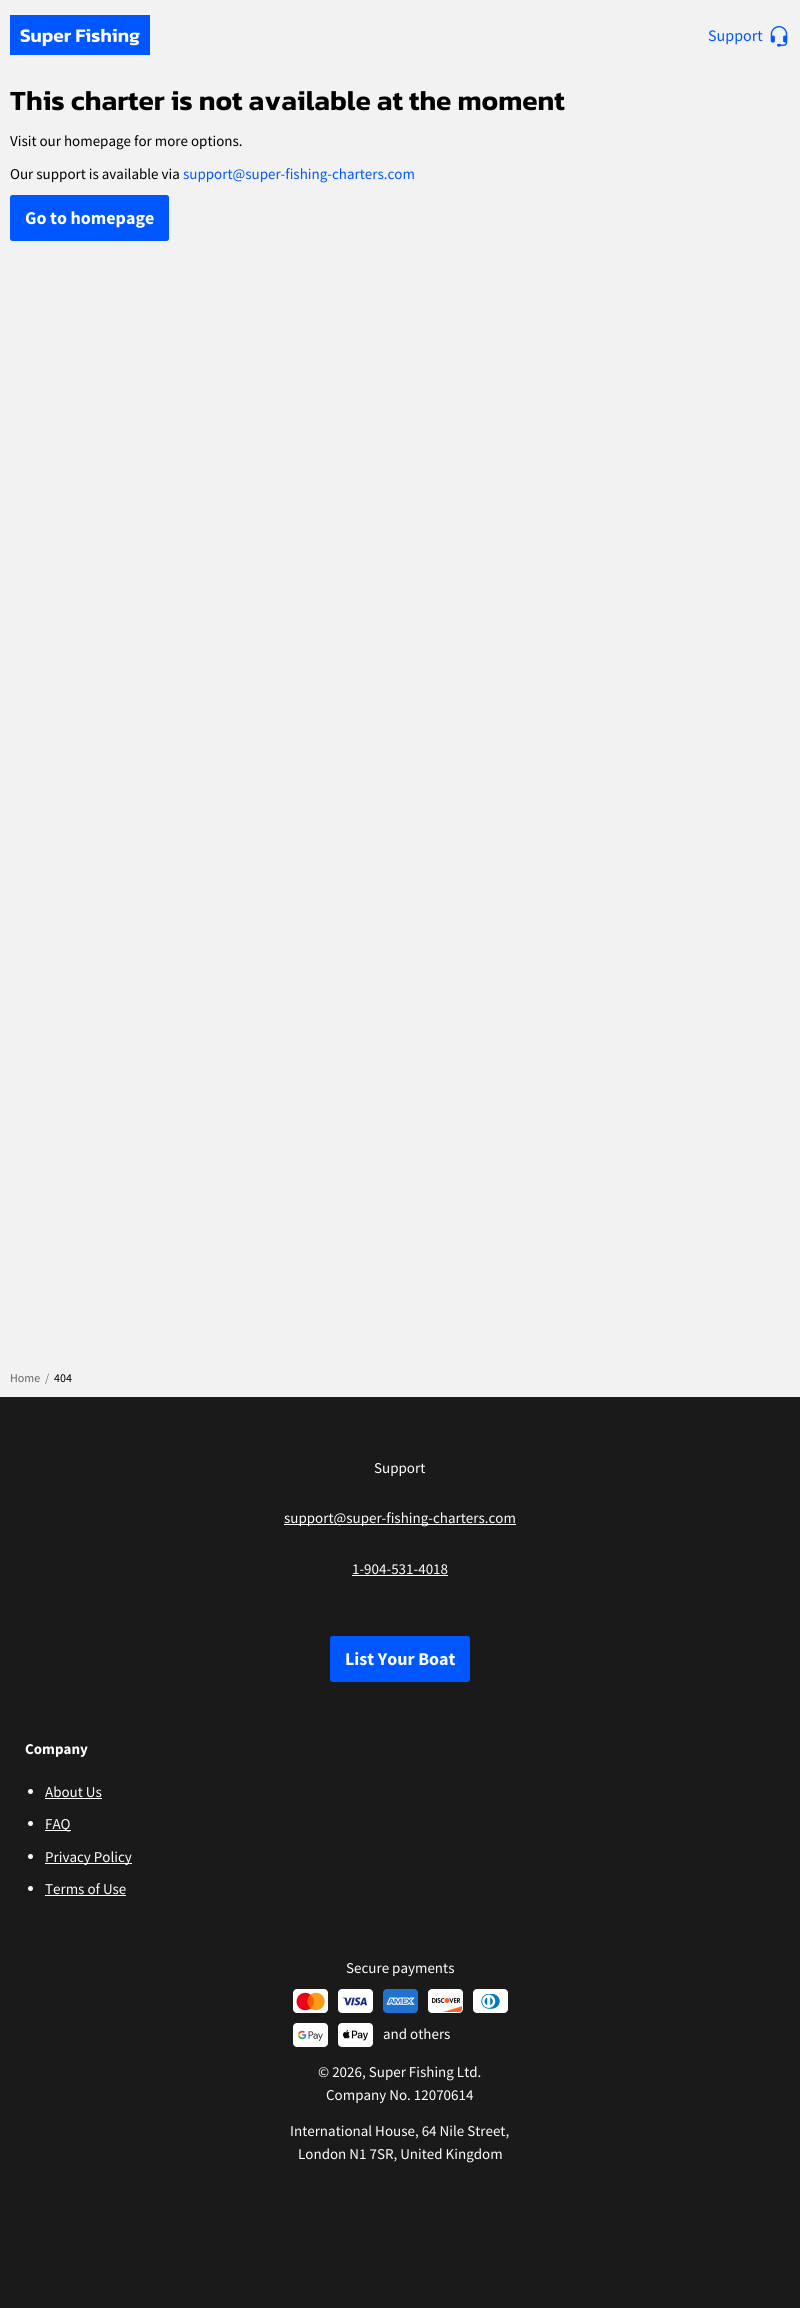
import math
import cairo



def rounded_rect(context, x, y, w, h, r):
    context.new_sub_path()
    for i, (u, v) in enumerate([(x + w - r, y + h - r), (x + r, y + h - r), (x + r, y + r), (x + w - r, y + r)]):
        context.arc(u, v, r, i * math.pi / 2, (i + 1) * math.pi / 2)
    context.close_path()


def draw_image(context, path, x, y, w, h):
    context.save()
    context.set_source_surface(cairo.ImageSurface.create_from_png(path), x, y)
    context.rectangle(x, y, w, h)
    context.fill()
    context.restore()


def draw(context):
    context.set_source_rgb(242 / 255, 242 / 255, 242 / 255)
    context.paint()
    context.set_source_rgb(0, 87 / 255, 1)
    context.rectangle(10, 15, 140, 40)
    context.fill()
    draw_image(context, "images/1.png", 20, 28, 120, 19)
    draw_image(context, "images/2.png", 770, 26, 18, 21)
    rounded_rect(context, 10, 195, 159, 46, 2.5)
    context.fill()
    context.set_source_rgb(26 / 255, 26 / 255, 26 / 255)
    context.rectangle(0, 1397, 800, 911)
    context.fill()
    context.set_source_rgb(1, 1, 1)
    context.rectangle(284, 1524, 232, 1)
    context.fill()
    context.rectangle(352, 1575, 96, 1)
    context.fill()
    context.set_source_rgb(0, 87 / 255, 1)
    rounded_rect(context, 330, 1636, 140, 46, 2.5)
    context.fill()
    context.set_source_rgb(1, 1, 1)
    context.arc(30.5, 1791.5, 2.5, 0, 2 * math.pi)
    context.fill()
    context.rectangle(45, 1798, 57, 1)
    context.fill()
    context.arc(30.5, 1823.5, 2.5, 0, 2 * math.pi)
    context.fill()
    context.rectangle(45, 1830, 26, 1)
    context.fill()
    context.arc(30.5, 1856.5, 2.5, 0, 2 * math.pi)
    context.fill()
    context.rectangle(45, 1863, 87, 1)
    context.fill()
    context.arc(30.5, 1888.5, 2.5, 0, 2 * math.pi)
    context.fill()
    context.rectangle(45, 1895, 81, 1)
    context.fill()
    rounded_rect(context, 293, 1989, 35, 24, 4)
    context.fill()
    draw_image(context, "images/3.png", 296, 1992, 29, 19)
    draw_image(context, "images/4.png", 338, 1989, 35, 24)
    draw_image(context, "images/5.png", 383, 1989, 35, 24)
    draw_image(context, "images/6.png", 428, 1989, 35, 24)
    draw_image(context, "images/7.png", 473, 1989, 35, 24)
    draw_image(context, "images/8.png", 293, 2023, 35, 24)
    draw_image(context, "images/9.png", 338, 2023, 35, 24)
    context.select_font_face("Source Sans Pro")
    context.set_font_size(16)
    context.set_source_rgb(0, 87 / 255, 1)
    context.move_to(708, 41)
    context.show_text("Support")
    context.select_font_face("Kanit SemiBold")
    context.set_font_size(28)
    context.set_source_rgb(0, 0, 0)
    context.move_to(10, 110)
    context.show_text("This charter is not available at the moment")
    context.select_font_face("Source Sans Pro")
    context.set_font_size(15)
    context.move_to(10, 146)
    context.show_text("Visit our homepage for more options.")
    context.move_to(10, 179)
    context.show_text("Our support is available via")
    context.set_source_rgb(0, 87 / 255, 1)
    context.move_to(183, 179)
    context.show_text("support@super-fishing-charters.com")
    context.select_font_face("Source Sans Pro", cairo.FontSlant.NORMAL, cairo.FontWeight.BOLD)
    context.set_font_size(18)
    context.set_source_rgb(1, 1, 1)
    context.move_to(25, 224)
    context.show_text("Go to homepage")
    context.select_font_face("Source Sans Pro")
    context.set_font_size(12)
    context.set_source_rgb(101 / 255, 101 / 255, 101 / 255)
    context.move_to(10, 1382)
    context.show_text("Home")
    context.set_source_rgb(108 / 255, 117 / 255, 125 / 255)
    context.move_to(45, 1382)
    context.show_text("/")
    context.set_source_rgb(0, 0, 0)
    context.move_to(54, 1382)
    context.show_text("404")
    context.set_font_size(15)
    context.set_source_rgb(1, 1, 1)
    context.move_to(374, 1473)
    context.show_text("Support")
    context.move_to(284, 1523)
    context.show_text("support@super-fishing-charters.com")
    context.move_to(352, 1574)
    context.show_text("1-904-531-4018")
    context.select_font_face("Source Sans Pro", cairo.FontSlant.NORMAL, cairo.FontWeight.BOLD)
    context.set_font_size(18)
    context.move_to(345, 1665)
    context.show_text("List Your Boat")
    context.set_font_size(15)
    context.move_to(25, 1754)
    context.show_text("Company")
    context.select_font_face("Source Sans Pro")
    context.move_to(45, 1797)
    context.show_text("About Us")
    context.move_to(45, 1829)
    context.show_text("FAQ")
    context.move_to(45, 1862)
    context.show_text("Privacy Policy")
    context.move_to(45, 1894)
    context.show_text("Terms of Use")
    context.move_to(346, 1973)
    context.show_text("Secure payments")
    context.move_to(383, 2039)
    context.show_text("and others")
    context.move_to(318, 2077)
    context.show_text("© 2026, Super Fishing Ltd.")
    context.move_to(326, 2100)
    context.show_text("Company No. 12070614")
    context.move_to(290, 2136)
    context.show_text("International House, 64 Nile Street,")
    context.move_to(298, 2159)
    context.show_text("London N1 7SR, United Kingdom")


surface = cairo.ImageSurface(cairo.Format.RGB24, 800, 2308)
context = cairo.Context(surface)
options = cairo.FontOptions()
options.set_hint_metrics(cairo.HintMetrics.OFF)
options.set_hint_style(cairo.HintStyle.NONE)
context.set_font_options(options)
context.set_miter_limit(4)
draw(context)
surface.write_to_png("out.png")
